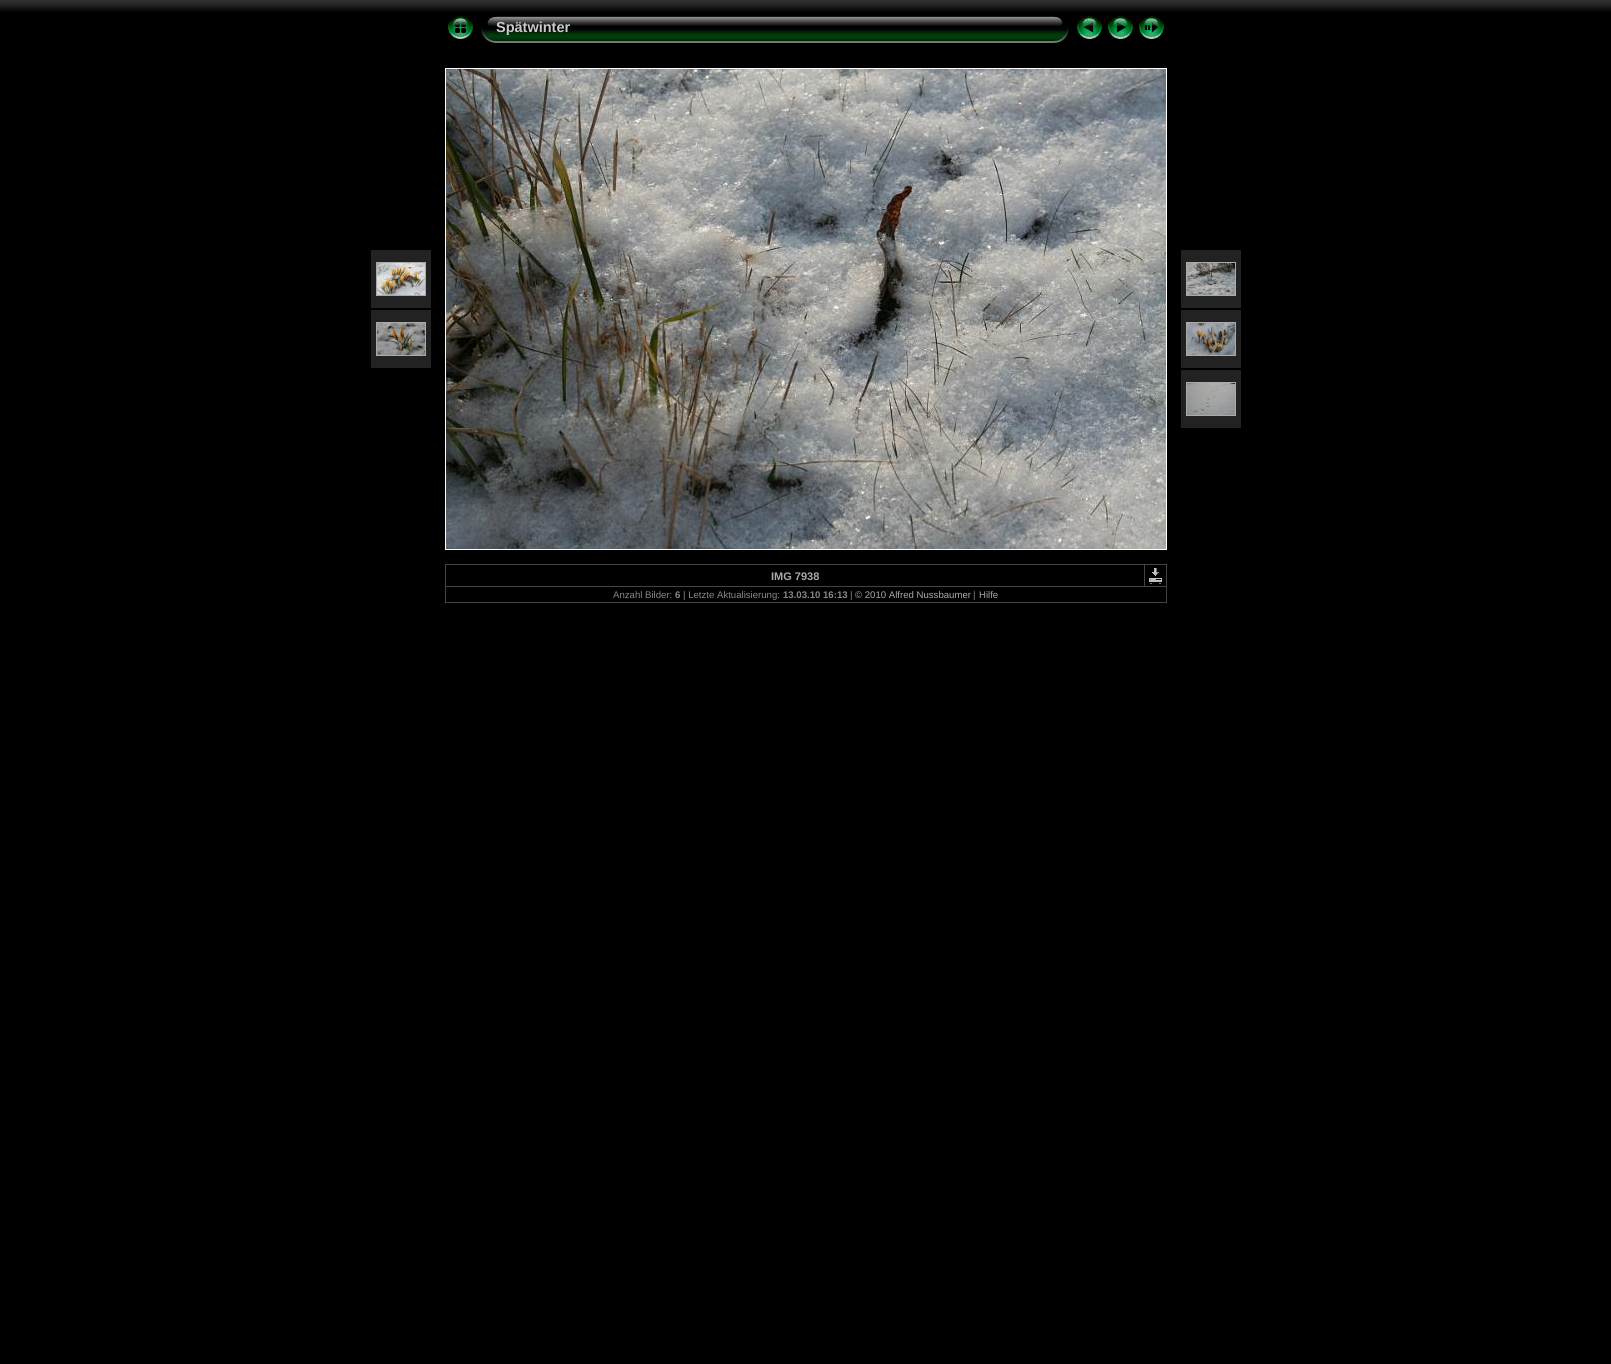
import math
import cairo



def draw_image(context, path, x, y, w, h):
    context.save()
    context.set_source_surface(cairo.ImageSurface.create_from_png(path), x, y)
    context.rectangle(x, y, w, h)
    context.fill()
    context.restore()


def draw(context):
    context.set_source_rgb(0, 0, 0)
    context.paint()
    draw_image(context, "images/1.png", 0, 0, 1611, 12)
    draw_image(context, "images/2.png", 448, 16, 25, 23)
    draw_image(context, "images/3.png", 481, 16, 15, 27)
    draw_image(context, "images/4.png", 496, 16, 558, 27)
    draw_image(context, "images/5.png", 1054, 16, 15, 27)
    draw_image(context, "images/6.png", 1077, 16, 25, 23)
    draw_image(context, "images/7.png", 1108, 16, 25, 23)
    draw_image(context, "images/8.png", 1139, 16, 25, 23)
    context.set_source_rgb(34 / 255, 34 / 255, 34 / 255)
    context.rectangle(371, 250, 60, 58)
    context.fill()
    context.rectangle(376.5, 262.5, 49, 33)
    context.set_source_rgb(170 / 255, 170 / 255, 170 / 255)
    context.set_line_width(1)
    context.stroke()
    draw_image(context, "images/9.png", 377, 263, 48, 32)
    context.set_source_rgb(34 / 255, 34 / 255, 34 / 255)
    context.rectangle(371, 310, 60, 58)
    context.fill()
    context.rectangle(376.5, 322.5, 49, 33)
    context.set_source_rgb(170 / 255, 170 / 255, 170 / 255)
    context.stroke()
    draw_image(context, "images/10.png", 377, 323, 48, 32)
    context.rectangle(445.5, 68.5, 721, 481)
    context.set_source_rgb(1, 1, 1)
    context.stroke()
    draw_image(context, "images/11.png", 446, 69, 720, 480)
    context.set_source_rgb(34 / 255, 34 / 255, 34 / 255)
    context.rectangle(1181, 250, 60, 58)
    context.fill()
    context.rectangle(1186.5, 262.5, 49, 33)
    context.set_source_rgb(170 / 255, 170 / 255, 170 / 255)
    context.stroke()
    draw_image(context, "images/12.png", 1187, 263, 48, 32)
    context.set_source_rgb(34 / 255, 34 / 255, 34 / 255)
    context.rectangle(1181, 310, 60, 58)
    context.fill()
    context.rectangle(1186.5, 322.5, 49, 33)
    context.set_source_rgb(170 / 255, 170 / 255, 170 / 255)
    context.stroke()
    draw_image(context, "images/13.png", 1187, 323, 48, 32)
    context.set_source_rgb(34 / 255, 34 / 255, 34 / 255)
    context.rectangle(1181, 370, 60, 58)
    context.fill()
    context.rectangle(1186.5, 382.5, 49, 33)
    context.set_source_rgb(170 / 255, 170 / 255, 170 / 255)
    context.stroke()
    draw_image(context, "images/14.png", 1187, 383, 48, 32)
    context.set_source_rgb(68 / 255, 68 / 255, 68 / 255)
    context.rectangle(445, 564, 722, 1)
    context.fill()
    context.rectangle(1166, 564, 1, 39)
    context.fill()
    context.rectangle(445, 602, 722, 1)
    context.fill()
    context.rectangle(445, 564, 1, 39)
    context.fill()
    context.rectangle(445, 586, 722, 1)
    context.fill()
    context.rectangle(1144, 564, 1, 23)
    context.fill()
    draw_image(context, "images/15.png", 1149, 568, 13, 16)
    context.select_font_face("Liberation Sans", cairo.FontSlant.NORMAL, cairo.FontWeight.BOLD)
    context.set_font_size(14.5)
    context.set_source_rgb(204 / 255, 204 / 255, 204 / 255)
    context.move_to(496, 32)
    context.show_text("Spätwinter")
    context.set_font_size(11)
    context.set_source_rgb(170 / 255, 170 / 255, 170 / 255)
    context.move_to(771, 580)
    context.show_text("IMG 7938")
    context.select_font_face("Liberation Sans")
    context.set_font_size(9.6)
    context.set_source_rgb(136 / 255, 136 / 255, 136 / 255)
    context.move_to(613, 598)
    context.show_text("Anzahl Bilder:")
    context.select_font_face("Liberation Sans", cairo.FontSlant.NORMAL, cairo.FontWeight.BOLD)
    context.move_to(675, 598)
    context.show_text("6")
    context.select_font_face("Liberation Sans")
    context.move_to(683, 598)
    context.show_text("| Letzte Aktualisierung:")
    context.select_font_face("Liberation Sans", cairo.FontSlant.NORMAL, cairo.FontWeight.BOLD)
    context.move_to(783, 598)
    context.show_text("13.03.10 16:13")
    context.select_font_face("Liberation Sans")
    context.move_to(850, 598)
    context.show_text("|")
    context.set_source_rgb(170 / 255, 170 / 255, 170 / 255)
    context.move_to(855, 598)
    context.show_text("© 2010 Alfred Nussbaumer")
    context.set_source_rgb(136 / 255, 136 / 255, 136 / 255)
    context.move_to(973, 598)
    context.show_text("|")
    context.set_source_rgb(170 / 255, 170 / 255, 170 / 255)
    context.move_to(979, 598)
    context.show_text("Hilfe")


surface = cairo.ImageSurface(cairo.Format.RGB24, 1611, 1364)
context = cairo.Context(surface)
options = cairo.FontOptions()
options.set_hint_metrics(cairo.HintMetrics.OFF)
options.set_hint_style(cairo.HintStyle.NONE)
context.set_font_options(options)
context.set_miter_limit(4)
draw(context)
surface.write_to_png("out.png")
